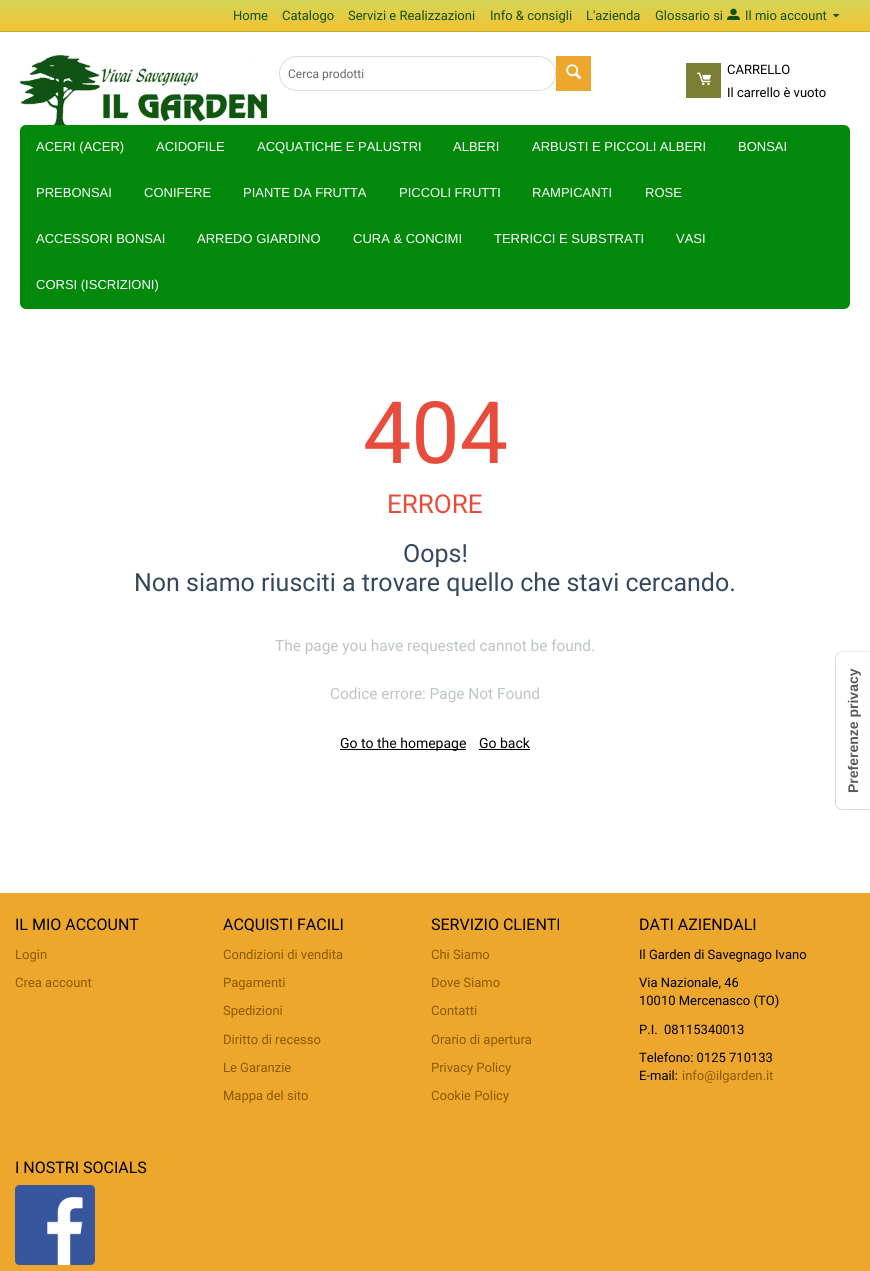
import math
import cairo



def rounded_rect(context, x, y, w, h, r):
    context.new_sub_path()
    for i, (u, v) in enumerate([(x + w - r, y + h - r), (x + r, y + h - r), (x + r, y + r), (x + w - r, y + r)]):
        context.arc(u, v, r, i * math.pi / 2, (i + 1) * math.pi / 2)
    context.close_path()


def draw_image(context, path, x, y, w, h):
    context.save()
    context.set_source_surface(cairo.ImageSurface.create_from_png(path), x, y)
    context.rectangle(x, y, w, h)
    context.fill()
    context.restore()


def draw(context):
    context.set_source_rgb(1, 1, 1)
    context.paint()
    gradient = cairo.LinearGradient(435, 0, 435, 31)
    gradient.add_color_stop_rgba(0, 214 / 255, 213 / 255, 86 / 255, 1)
    gradient.add_color_stop_rgba(1, 241 / 255, 194 / 255, 50 / 255, 1)
    context.set_source(gradient)
    context.rectangle(0, 0, 870, 31)
    context.fill()
    context.set_source_rgb(180 / 255, 179 / 255, 44 / 255)
    context.rectangle(0, 31, 870, 1)
    context.fill()
    draw_image(context, "images/1.png", 727, 8, 13, 12)
    context.set_source_rgb(16 / 255, 82 / 255, 20 / 255)
    context.new_path()
    context.move_to(836, 17.5)
    context.line_to(833, 14)
    context.line_to(839.5, 14)
    context.close_path()
    context.fill()
    draw_image(context, "images/2.png", 20, 55, 247, 70)
    rounded_rect(context, 279.5, 56.5, 276, 34, 17)
    context.set_source_rgb(221 / 255, 218 / 255, 218 / 255)
    context.set_line_width(1)
    context.stroke()
    context.set_source_rgb(236 / 255, 167 / 255, 44 / 255)
    context.rectangle(556, 56, 35, 35)
    context.fill()
    draw_image(context, "images/3.png", 566, 64, 16, 16)
    context.set_source_rgb(122 / 255, 127 / 255, 51 / 255)
    context.rectangle(686, 63, 35, 35)
    context.fill()
    draw_image(context, "images/4.png", 697, 72, 14, 14)
    context.set_source_rgb(2 / 255, 137 / 255, 11 / 255)
    rounded_rect(context, 20, 125, 830, 184, 6)
    context.fill()
    context.set_source_rgb(0, 0, 0)
    context.rectangle(340, 749, 126, 1)
    context.fill()
    context.rectangle(479, 749, 51, 1)
    context.fill()
    context.set_source_rgb(236 / 255, 167 / 255, 44 / 255)
    context.rectangle(0, 893, 870, 378)
    context.fill()
    draw_image(context, "images/5.png", 15, 1185, 80, 80)
    context.new_path()
    context.move_to(835.5, 803)
    context.line_to(835.5, 658.5)
    context.curve_to(835.5, 655, 838.5, 652, 842, 652)
    context.line_to(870.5, 652)
    context.line_to(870.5, 809.5)
    context.line_to(842, 809.5)
    context.curve_to(838.5, 809.5, 835.5, 806.5, 835.5, 803)
    context.close_path()
    context.set_source_rgb(217 / 255, 217 / 255, 217 / 255)
    context.stroke()
    context.set_source_rgb(1, 1, 1)
    context.new_path()
    context.move_to(836, 803)
    context.line_to(836, 658)
    context.curve_to(836, 655, 839, 652, 842, 652)
    context.line_to(870, 652)
    context.line_to(870, 809)
    context.line_to(842, 809)
    context.curve_to(839, 809, 836, 806, 836, 803)
    context.close_path()
    context.fill()
    context.select_font_face("Roboto")
    context.set_font_size(13)
    context.set_source_rgb(16 / 255, 82 / 255, 20 / 255)
    context.move_to(233, 20)
    context.show_text("Home")
    context.move_to(282, 20)
    context.show_text("Catalogo")
    context.move_to(348, 20)
    context.show_text("Servizi e Realizzazioni")
    context.move_to(490, 20)
    context.show_text("Info & consigli")
    context.move_to(586, 20)
    context.show_text("L'azienda")
    context.move_to(655, 20)
    context.show_text("Glossario si")
    context.move_to(745, 20)
    context.show_text("Il mio account")
    context.set_font_size(12)
    context.set_source_rgb(102 / 255, 102 / 255, 102 / 255)
    context.move_to(288, 78)
    context.show_text("Cerca prodotti")
    context.set_font_size(13)
    context.set_source_rgb(0, 0, 0)
    context.move_to(727, 74)
    context.show_text("CARRELLO")
    context.move_to(727, 97)
    context.show_text("Il carrello è vuoto")
    context.select_font_face("Liberation Sans")
    context.set_source_rgb(1, 1, 1)
    context.move_to(36, 151)
    context.show_text("ACERI (ACER)")
    context.move_to(156, 151)
    context.show_text("ACIDOFILE")
    context.move_to(257, 151)
    context.show_text("ACQUATICHE E PALUSTRI")
    context.move_to(453, 151)
    context.show_text("ALBERI")
    context.move_to(532, 151)
    context.show_text("ARBUSTI E PICCOLI ALBERI")
    context.move_to(738, 151)
    context.show_text("BONSAI")
    context.move_to(36, 197)
    context.show_text("PREBONSAI")
    context.move_to(144, 197)
    context.show_text("CONIFERE")
    context.move_to(243, 197)
    context.show_text("PIANTE DA FRUTTA")
    context.move_to(399, 197)
    context.show_text("PICCOLI FRUTTI")
    context.move_to(532, 197)
    context.show_text("RAMPICANTI")
    context.move_to(645, 197)
    context.show_text("ROSE")
    context.move_to(36, 243)
    context.show_text("ACCESSORI BONSAI")
    context.move_to(197, 243)
    context.show_text("ARREDO GIARDINO")
    context.move_to(353, 243)
    context.show_text("CURA & CONCIMI")
    context.move_to(494, 243)
    context.show_text("TERRICCI E SUBSTRATI")
    context.move_to(676, 243)
    context.show_text("VASI")
    context.move_to(36, 289)
    context.show_text("CORSI (ISCRIZIONI)")
    context.select_font_face("Roboto")
    context.set_font_size(86)
    context.set_source_rgb(231 / 255, 76 / 255, 60 / 255)
    context.move_to(363, 463)
    context.show_text("404")
    context.set_font_size(26)
    context.move_to(387, 513)
    context.show_text("ERRORE")
    context.set_font_size(25)
    context.set_source_rgb(52 / 255, 73 / 255, 94 / 255)
    context.move_to(403, 562)
    context.show_text("Oops!")
    context.move_to(134, 591)
    context.show_text("Non siamo riusciti a trovare quello che stavi cercando.")
    context.set_font_size(15.4)
    context.set_source_rgb(189 / 255, 195 / 255, 199 / 255)
    context.move_to(275, 651)
    context.show_text("The page you have requested cannot be found.")
    context.move_to(330, 699)
    context.show_text("Codice errore: Page Not Found")
    context.set_font_size(14)
    context.set_source_rgb(0, 0, 0)
    context.move_to(340, 748)
    context.show_text("Go to the homepage")
    context.move_to(479, 748)
    context.show_text("Go back")
    context.set_font_size(16)
    context.move_to(15, 930)
    context.show_text("IL MIO ACCOUNT")
    context.set_font_size(13)
    context.set_source_rgb(141 / 255, 90 / 255, 0)
    context.move_to(15, 959)
    context.show_text("Login")
    context.move_to(15, 987)
    context.show_text("Crea account")
    context.set_font_size(16)
    context.set_source_rgb(0, 0, 0)
    context.move_to(223, 930)
    context.show_text("ACQUISTI FACILI")
    context.set_font_size(13)
    context.set_source_rgb(141 / 255, 90 / 255, 0)
    context.move_to(223, 959)
    context.show_text("Condizioni di vendita")
    context.move_to(223, 987)
    context.show_text("Pagamenti")
    context.move_to(223, 1015)
    context.show_text("Spedizioni")
    context.move_to(223, 1044)
    context.show_text("Diritto di recesso")
    context.move_to(223, 1072)
    context.show_text("Le Garanzie")
    context.move_to(223, 1100)
    context.show_text("Mappa del sito")
    context.set_font_size(16)
    context.set_source_rgb(0, 0, 0)
    context.move_to(431, 930)
    context.show_text("SERVIZIO CLIENTI")
    context.set_font_size(13)
    context.set_source_rgb(141 / 255, 90 / 255, 0)
    context.move_to(431, 959)
    context.show_text("Chi Siamo")
    context.move_to(431, 987)
    context.show_text("Dove Siamo")
    context.move_to(431, 1015)
    context.show_text("Contatti")
    context.move_to(431, 1044)
    context.show_text("Orario di apertura")
    context.move_to(431, 1072)
    context.show_text("Privacy Policy")
    context.move_to(431, 1100)
    context.show_text("Cookie Policy")
    context.set_font_size(16)
    context.set_source_rgb(0, 0, 0)
    context.move_to(639, 930)
    context.show_text("DATI AZIENDALI")
    context.set_font_size(13)
    context.move_to(639, 959)
    context.show_text("Il Garden di Savegnago Ivano")
    context.move_to(639, 987)
    context.show_text("Via Nazionale, 46")
    context.move_to(639, 1005)
    context.show_text("10010 Mercenasco (TO)")
    context.move_to(639, 1034)
    context.show_text("P.I.  08115340013")
    context.move_to(639, 1062)
    context.show_text("Telefono: 0125 710133")
    context.move_to(639, 1080)
    context.show_text("E-mail:")
    context.set_source_rgb(141 / 255, 90 / 255, 0)
    context.move_to(682, 1080)
    context.show_text("info@ilgarden.it")
    context.set_font_size(16)
    context.set_source_rgb(0, 0, 0)
    context.move_to(15, 1173)
    context.show_text("I NOSTRI SOCIALS")
    context.select_font_face("Liberation Sans", cairo.FontSlant.NORMAL, cairo.FontWeight.BOLD)
    context.set_font_size(14)
    context.set_source_rgb(89 / 255, 89 / 255, 89 / 255)
    context.save()
    context.translate(858, 793)
    context.rotate(-90 * math.pi / 180)
    context.move_to(0, 0)
    context.show_text("Preferenze privacy")
    context.restore()


surface = cairo.ImageSurface(cairo.Format.RGB24, 870, 1271)
context = cairo.Context(surface)
options = cairo.FontOptions()
options.set_hint_metrics(cairo.HintMetrics.OFF)
options.set_hint_style(cairo.HintStyle.NONE)
context.set_font_options(options)
context.set_miter_limit(4)
draw(context)
surface.write_to_png("out.png")
